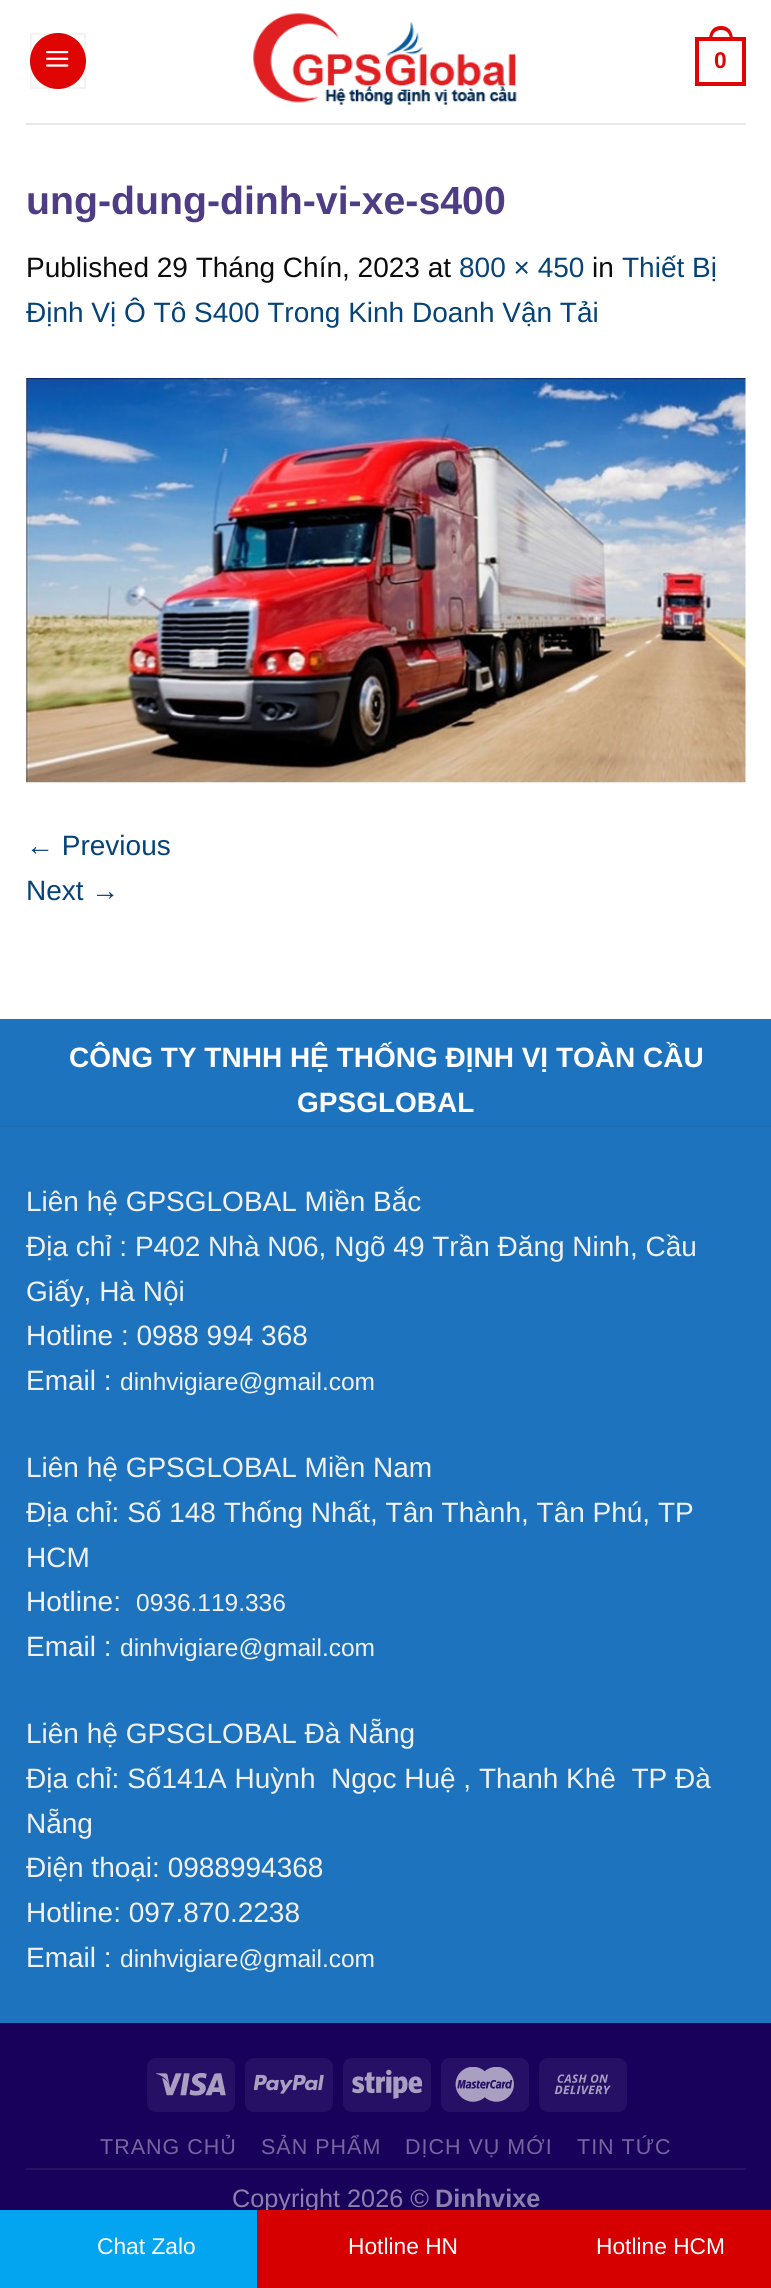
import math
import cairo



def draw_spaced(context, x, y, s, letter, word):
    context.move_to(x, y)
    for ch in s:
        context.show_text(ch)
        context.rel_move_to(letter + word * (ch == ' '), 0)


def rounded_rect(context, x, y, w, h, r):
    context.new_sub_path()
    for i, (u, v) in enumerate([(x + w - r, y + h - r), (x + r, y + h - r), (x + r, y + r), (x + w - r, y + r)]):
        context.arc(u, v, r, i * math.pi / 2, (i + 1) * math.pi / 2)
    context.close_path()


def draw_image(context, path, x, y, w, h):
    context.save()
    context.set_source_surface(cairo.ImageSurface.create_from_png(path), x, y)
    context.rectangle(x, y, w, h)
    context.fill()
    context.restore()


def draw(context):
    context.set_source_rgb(1, 1, 1)
    context.paint()
    context.set_source_rgb(223 / 255, 5 / 255, 5 / 255)
    context.arc(58, 61, 28, 0, 2 * math.pi)
    context.fill()
    context.rectangle(31, 34, 54, 54)
    context.set_source_rgba(0, 0, 0, 0.05)
    context.stroke()
    draw_image(context, "images/1.png", 46, 51, 23, 16)
    draw_image(context, "images/2.png", 253, 13, 264, 92)
    context.rectangle(697, 39, 47, 45)
    context.set_source_rgb(223 / 255, 5 / 255, 5 / 255)
    context.set_line_width(4)
    context.stroke()
    context.set_fill_rule(cairo.FillRule.EVEN_ODD)
    context.new_path()
    context.move_to(721, 26)
    context.curve_to(729.5, 26, 733, 32.5, 733, 40)
    context.line_to(709, 40)
    context.curve_to(709, 32.5, 712.5, 26, 721, 26)
    context.close_path()
    context.move_to(721, 30)
    context.curve_to(727.5, 30, 730, 34.5, 730, 40)
    context.line_to(712, 40)
    context.curve_to(712, 34.5, 714.5, 30, 721, 30)
    context.close_path()
    context.fill()
    context.set_source_rgb(231 / 255, 231 / 255, 231 / 255)
    context.rectangle(26, 123, 720, 2)
    context.fill()
    draw_image(context, "images/3.png", 26, 378, 720, 405)
    context.set_source_rgb(30 / 255, 115 / 255, 190 / 255)
    context.rectangle(0, 1019, 771, 106)
    context.fill()
    context.rectangle(0, 1127, 771, 896)
    context.fill()
    context.set_source_rgb(29 / 255, 109 / 255, 181 / 255)
    context.rectangle(0, 1125, 771, 2)
    context.fill()
    context.set_source_rgb(24 / 255, 1 / 255, 91 / 255)
    context.rectangle(0, 2023, 771, 187)
    context.fill()
    context.set_source_rgb(38 / 255, 16 / 255, 101 / 255)
    rounded_rect(context, 147, 2058, 88, 54, 9)
    context.fill()
    draw_image(context, "images/4.png", 156, 2072, 70, 24)
    rounded_rect(context, 245, 2058, 88, 54, 9)
    context.fill()
    draw_image(context, "images/5.png", 254, 2074, 70, 20)
    rounded_rect(context, 343, 2058, 88, 54, 9)
    context.fill()
    draw_image(context, "images/6.png", 352, 2069, 70, 30)
    rounded_rect(context, 441, 2058, 88, 54, 9)
    context.fill()
    draw_image(context, "images/7.png", 455, 2067, 59, 35)
    rounded_rect(context, 539, 2058, 88, 54, 9)
    context.fill()
    draw_image(context, "images/8.png", 554, 2074, 57, 21)
    context.set_source_rgb(39 / 255, 17 / 255, 101 / 255)
    context.rectangle(26, 2168, 720, 2)
    context.fill()
    context.select_font_face("Liberation Sans", cairo.FontSlant.NORMAL, cairo.FontWeight.BOLD)
    context.set_font_size(22.75)
    context.set_source_rgb(223 / 255, 5 / 255, 5 / 255)
    context.move_to(714, 68)
    context.show_text("0")
    context.set_font_size(39.25)
    context.set_source_rgb(78 / 255, 61 / 255, 132 / 255)
    context.move_to(26, 214)
    context.show_text("ung-dung-dinh-vi-xe-s400")
    context.select_font_face("Liberation Sans")
    context.set_font_size(28)
    context.set_source_rgb(12 / 255, 12 / 255, 12 / 255)
    context.move_to(26, 277)
    context.show_text("Published 29 Tháng Chín, 2023 at")
    context.set_source_rgb(5 / 255, 67 / 255, 121 / 255)
    context.move_to(459, 277)
    context.show_text("800 × 450")
    context.set_source_rgb(12 / 255, 12 / 255, 12 / 255)
    context.move_to(592, 277)
    context.show_text("in")
    context.set_source_rgb(5 / 255, 67 / 255, 121 / 255)
    context.move_to(622, 277)
    context.show_text("Thiết Bị")
    context.move_to(26, 322)
    context.show_text("Định Vị Ô Tô S400 Trong Kinh Doanh Vận Tải")
    context.move_to(26, 855)
    context.show_text("← Previous")
    context.move_to(26, 900)
    context.show_text("Next →")
    context.select_font_face("Liberation Sans", cairo.FontSlant.NORMAL, cairo.FontWeight.BOLD)
    context.set_source_rgb(1, 1, 1)
    context.move_to(69, 1067)
    context.show_text("CÔNG TY TNHH HỆ THỐNG ĐỊNH VỊ TOÀN CẦU")
    context.move_to(297, 1112)
    context.show_text("GPSGLOBAL")
    context.select_font_face("Liberation Sans")
    context.set_source_rgb(241 / 255, 241 / 255, 241 / 255)
    context.move_to(26, 1211)
    context.show_text("Liên hệ GPSGLOBAL Miền Bắc")
    context.move_to(26, 1256)
    context.show_text("Địa chỉ : P402 Nhà N06, Ngõ 49 Trần Đăng Ninh, Cầu")
    context.move_to(26, 1301)
    context.show_text("Giấy, Hà Nội")
    context.move_to(26, 1345)
    context.show_text("Hotline : 0988 994 368")
    context.move_to(26, 1390)
    context.show_text("Email :")
    context.set_font_size(24.5)
    context.move_to(120, 1390)
    context.show_text("dinhvigiare@gmail.com")
    context.set_font_size(28)
    context.move_to(26, 1477)
    context.show_text("Liên hệ GPSGLOBAL Miền Nam")
    context.move_to(26, 1522)
    context.show_text("Địa chỉ: Số 148 Thống Nhất, Tân Thành, Tân Phú, TP")
    context.move_to(26, 1567)
    context.show_text("HCM")
    context.move_to(26, 1611)
    context.show_text("Hotline:")
    context.set_font_size(24.5)
    context.move_to(136, 1611)
    context.show_text("0936.119.336")
    context.set_font_size(28)
    context.move_to(26, 1656)
    context.show_text("Email :")
    context.set_font_size(24.5)
    context.move_to(120, 1656)
    context.show_text("dinhvigiare@gmail.com")
    context.set_font_size(28)
    context.move_to(26, 1743)
    context.show_text("Liên hệ GPSGLOBAL Đà Nẵng")
    context.move_to(26, 1788)
    context.show_text("Địa chỉ: Số141A Huỳnh  Ngọc Huệ , Thanh Khê  TP Đà")
    context.move_to(26, 1833)
    context.show_text("Nẵng")
    context.move_to(26, 1877)
    context.show_text("Điện thoại: 0988994368")
    context.move_to(26, 1922)
    context.show_text("Hotline: 097.870.2238")
    context.move_to(26, 1967)
    context.show_text("Email :")
    context.set_font_size(24.5)
    context.move_to(120, 1967)
    context.show_text("dinhvigiare@gmail.com")
    context.set_font_size(21.5)
    context.set_source_rgb(117 / 255, 103 / 255, 157 / 255)
    draw_spaced(context, 100, 2154, "TRANG CHỦ", 1, 0)
    draw_spaced(context, 261, 2154, "SẢN PHẨM", 1, 0)
    draw_spaced(context, 405, 2154, "DỊCH VỤ MỚI", 1, 0)
    draw_spaced(context, 577, 2154, "TIN TỨC", 1, 0)
    context.set_font_size(25.25)
    context.set_source_rgb(140 / 255, 128 / 255, 173 / 255)
    context.move_to(232, 2207)
    context.show_text("Copyright 2026 ©")
    context.select_font_face("Liberation Sans", cairo.FontSlant.NORMAL, cairo.FontWeight.BOLD)
    context.move_to(435, 2207)
    context.show_text("Dinhvixe")
    context.set_source_rgb(3 / 255, 165 / 255, 240 / 255)
    context.rectangle(0, 2210, 257, 78)
    context.fill()
    context.select_font_face("Liberation Sans")
    context.set_font_size(22.75)
    context.set_source_rgb(1, 1, 1)
    context.move_to(97, 2254)
    context.show_text("Chat Zalo")
    context.set_source_rgb(214 / 255, 0, 0)
    context.rectangle(257, 2210, 514, 78)
    context.fill()
    context.set_source_rgb(1, 1, 1)
    context.move_to(348, 2254)
    context.show_text("Hotline HN")
    context.move_to(596, 2254)
    context.show_text("Hotline HCM")


surface = cairo.ImageSurface(cairo.Format.RGB24, 771, 2288)
context = cairo.Context(surface)
options = cairo.FontOptions()
options.set_hint_metrics(cairo.HintMetrics.OFF)
options.set_hint_style(cairo.HintStyle.NONE)
context.set_font_options(options)
context.set_miter_limit(4)
draw(context)
surface.write_to_png("out.png")
